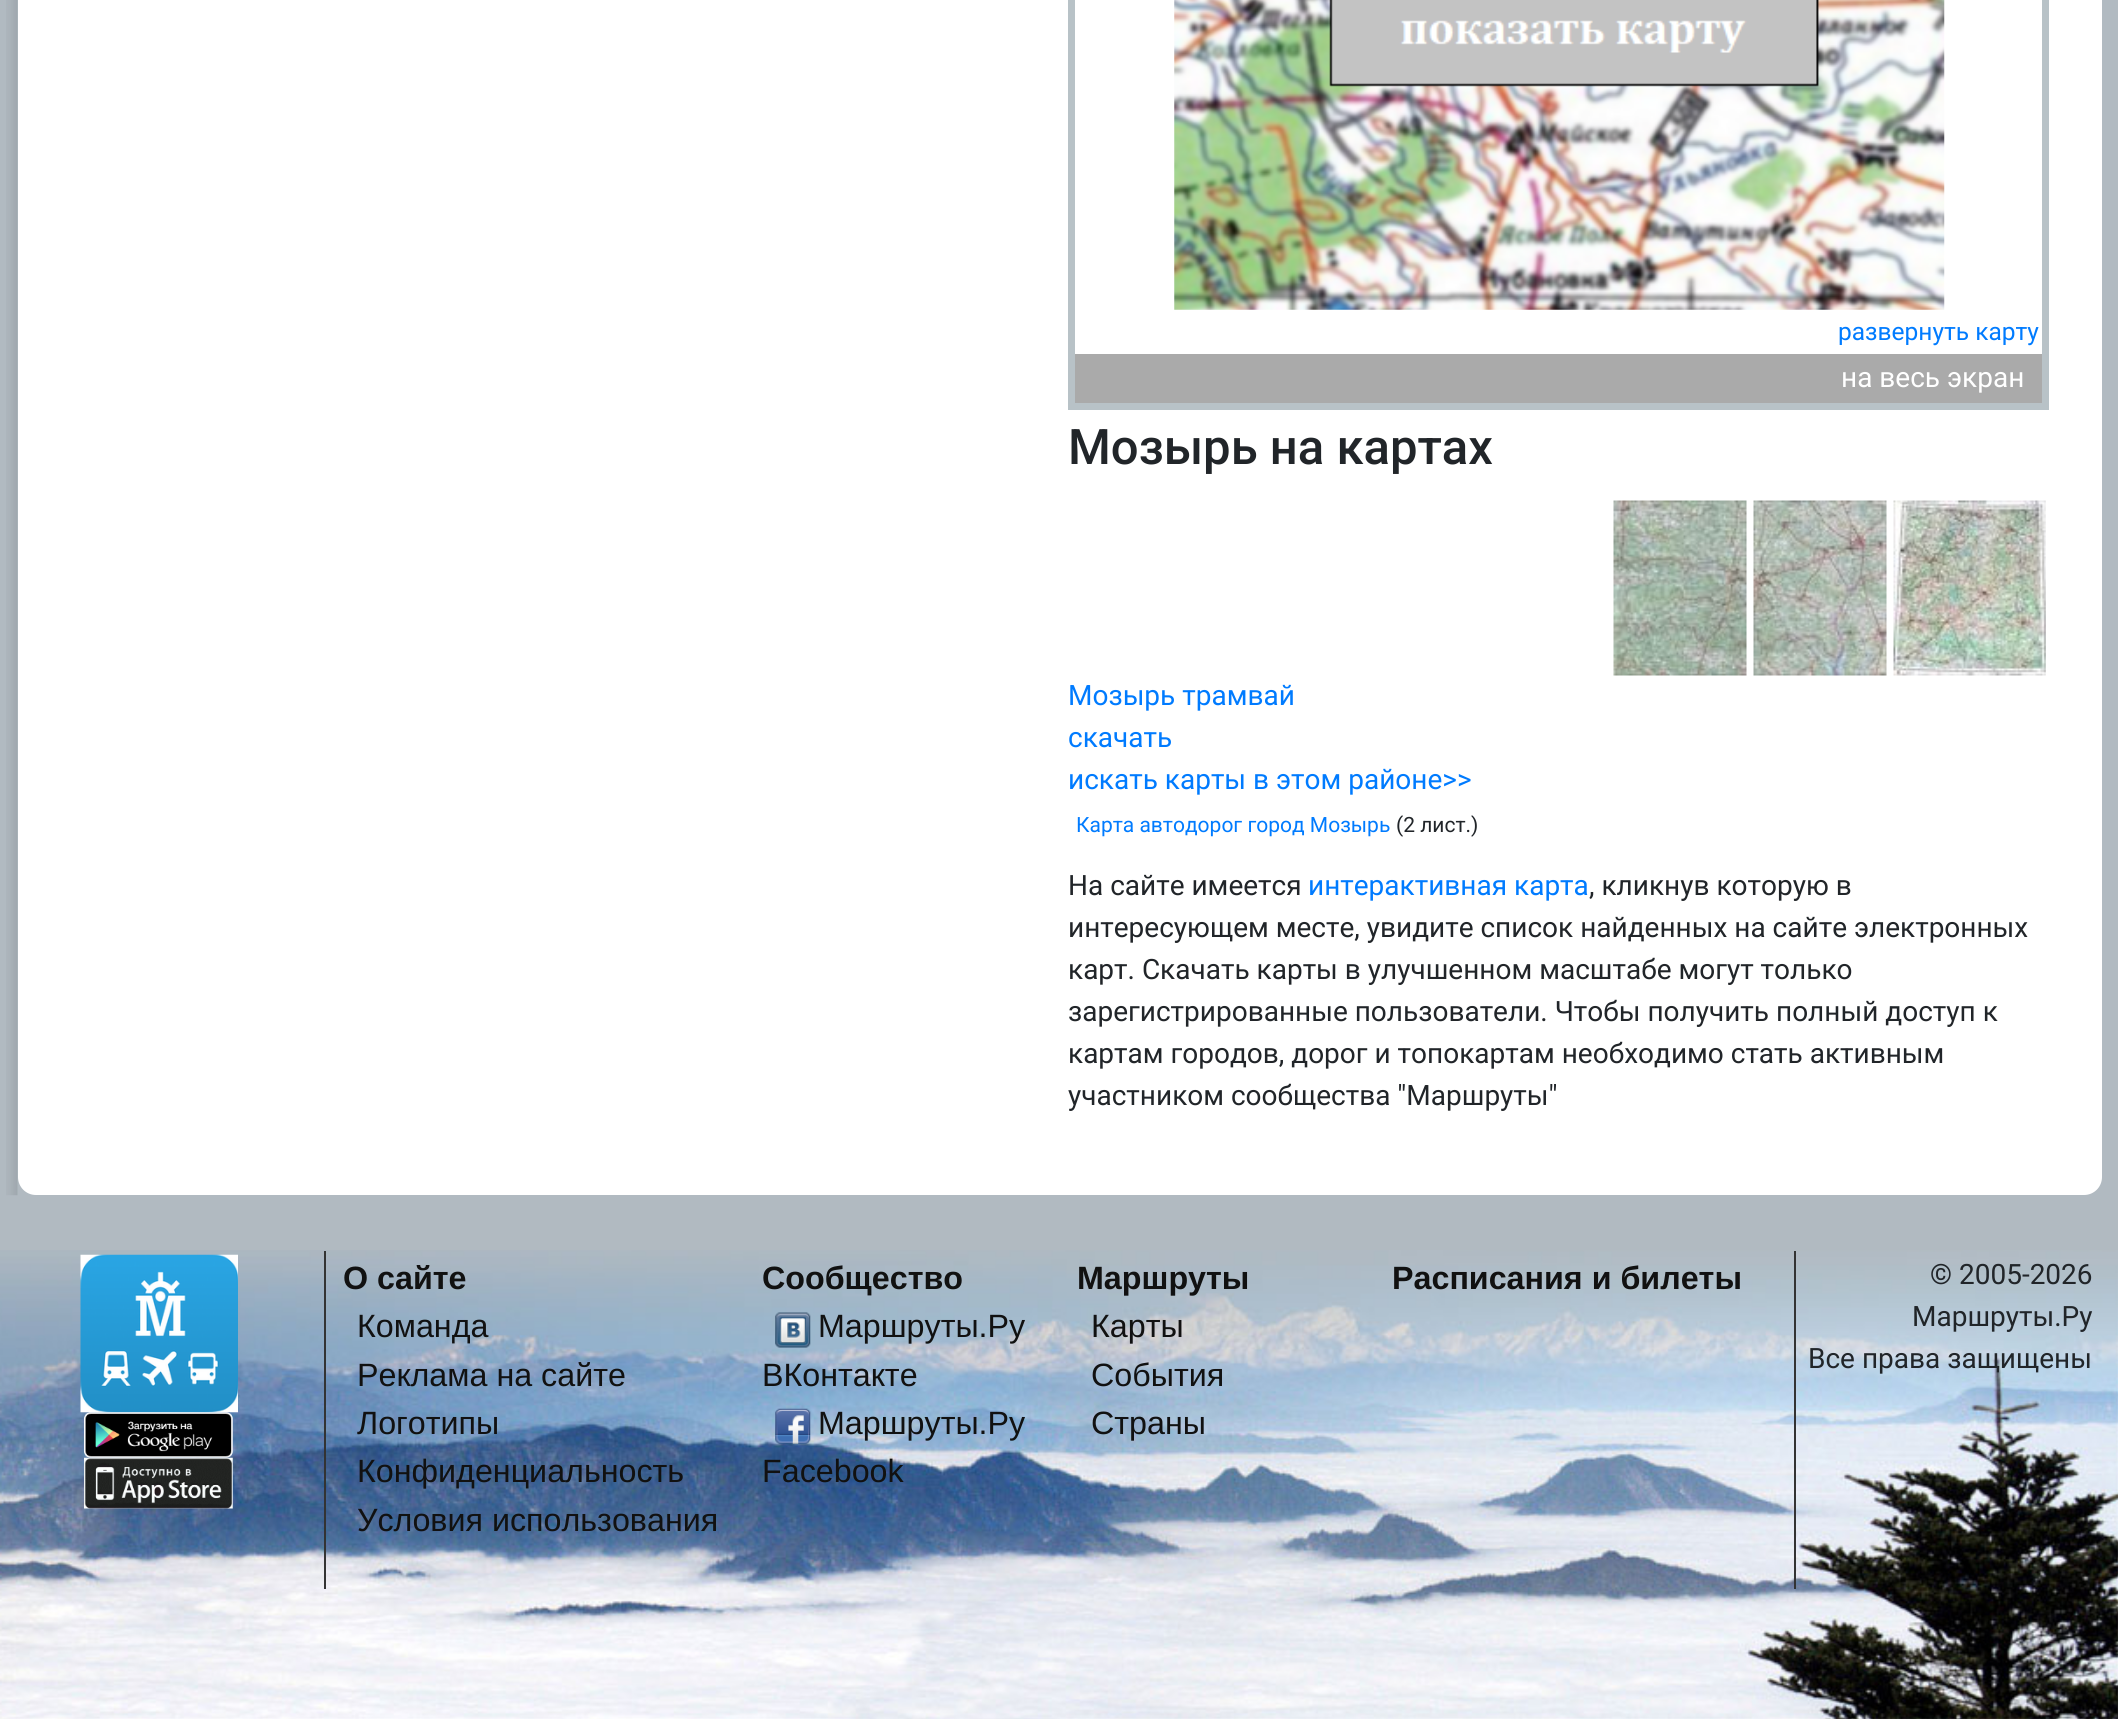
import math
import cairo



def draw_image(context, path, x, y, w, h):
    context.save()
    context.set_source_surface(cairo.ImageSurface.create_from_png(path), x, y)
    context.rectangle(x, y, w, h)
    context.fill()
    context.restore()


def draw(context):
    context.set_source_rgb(177 / 255, 186 / 255, 193 / 255)
    context.paint()
    draw_image(context, "images/1.png", 6, 0, 12, 1196)
    context.set_source_rgb(1, 1, 1)
    context.new_path()
    context.move_to(18, -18)
    context.line_to(2102, -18)
    context.line_to(2102, 1177)
    context.curve_to(2102, 1187, 2094, 1195, 2084, 1195)
    context.line_to(36, 1195)
    context.curve_to(26, 1195, 18, 1187, 18, 1177)
    context.close_path()
    context.fill()
    context.rectangle(1071.5, -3.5, 974, 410)
    context.set_source_rgb(184 / 255, 194 / 255, 199 / 255)
    context.set_line_width(7)
    context.stroke()
    draw_image(context, "images/2.png", 1174, 0, 771, 310)
    context.set_source_rgb(170 / 255, 170 / 255, 170 / 255)
    context.rectangle(1075, 354, 967, 49)
    context.fill()
    draw_image(context, "images/3.png", 1613, 500, 134, 176)
    draw_image(context, "images/4.png", 1753, 500, 134, 176)
    draw_image(context, "images/5.png", 1893, 500, 153, 176)
    draw_image(context, "images/6.png", 0, 1250, 2118, 469)
    context.set_source_rgb(51 / 255, 51 / 255, 51 / 255)
    context.rectangle(324, 1251, 2, 338)
    context.fill()
    draw_image(context, "images/7.png", 80, 1254, 158, 159)
    draw_image(context, "images/8.png", 84, 1412, 149, 46)
    draw_image(context, "images/9.png", 84, 1457, 149, 52)
    draw_image(context, "images/10.png", 775, 1312, 36, 36)
    draw_image(context, "images/11.png", 775, 1408, 36, 36)
    context.rectangle(1794, 1251, 2, 338)
    context.fill()
    context.select_font_face("Roboto")
    context.set_font_size(24.5)
    context.set_source_rgb(0, 123 / 255, 1)
    context.move_to(1838, 340)
    context.show_text("развернуть карту")
    context.set_font_size(28)
    context.set_source_rgb(1, 1, 1)
    context.move_to(1841, 387)
    context.show_text("на весь экран")
    context.select_font_face("Roboto Medium")
    context.set_font_size(49)
    context.set_source_rgb(33 / 255, 37 / 255, 41 / 255)
    context.move_to(1068, 464)
    context.show_text("Мозырь на картах")
    context.select_font_face("Roboto")
    context.set_font_size(28)
    context.set_source_rgb(0, 123 / 255, 1)
    context.move_to(1068, 705)
    context.show_text("Мозырь трамвай")
    context.move_to(1068, 747)
    context.show_text("скачать")
    context.move_to(1068, 789)
    context.show_text("искать карты в этом районе>>")
    context.set_font_size(21)
    context.move_to(1076, 832)
    context.show_text("Карта автодорог город Мозырь")
    context.set_source_rgb(33 / 255, 37 / 255, 41 / 255)
    context.move_to(1396, 832)
    context.show_text("(2 лист.)")
    context.set_font_size(28)
    context.move_to(1068, 895)
    context.show_text("На сайте имеется")
    context.set_source_rgb(0, 123 / 255, 1)
    context.move_to(1308, 895)
    context.show_text("интерактивная карта")
    context.set_source_rgb(33 / 255, 37 / 255, 41 / 255)
    context.move_to(1589, 895)
    context.show_text(", кликнув которую в")
    context.move_to(1068, 937)
    context.show_text("интересующем месте, увидите список найденных на сайте электронных")
    context.move_to(1068, 979)
    context.show_text("карт. Скачать карты в улучшенном масштабе могут только")
    context.move_to(1068, 1021)
    context.show_text("зарегистрированные пользователи. Чтобы получить полный доступ к")
    context.move_to(1068, 1063)
    context.show_text("картам городов, дорог и топокартам необходимо стать активным")
    context.move_to(1068, 1105)
    context.show_text("участником сообщества \"Маршруты\"")
    context.select_font_face("Liberation Sans", cairo.FontSlant.NORMAL, cairo.FontWeight.BOLD)
    context.set_font_size(32.25)
    context.set_source_rgb(17 / 255, 17 / 255, 17 / 255)
    context.move_to(343, 1289)
    context.show_text("О сайте")
    context.select_font_face("Liberation Sans")
    context.move_to(357, 1337)
    context.show_text("Команда")
    context.move_to(357, 1386)
    context.show_text("Реклама на сайте")
    context.move_to(357, 1434)
    context.show_text("Логотипы")
    context.move_to(357, 1482)
    context.show_text("Конфиденциальность")
    context.move_to(357, 1531)
    context.show_text("Условия использования")
    context.select_font_face("Liberation Sans", cairo.FontSlant.NORMAL, cairo.FontWeight.BOLD)
    context.move_to(762, 1289)
    context.show_text("Сообщество")
    context.select_font_face("Liberation Sans")
    context.move_to(818, 1337)
    context.show_text("Маршруты.Ру")
    context.move_to(762, 1386)
    context.show_text("ВКонтакте")
    context.move_to(818, 1434)
    context.show_text("Маршруты.Ру")
    context.move_to(762, 1482)
    context.show_text("Facebook")
    context.select_font_face("Liberation Sans", cairo.FontSlant.NORMAL, cairo.FontWeight.BOLD)
    context.move_to(1077, 1289)
    context.show_text("Маршруты")
    context.select_font_face("Liberation Sans")
    context.move_to(1091, 1337)
    context.show_text("Карты")
    context.move_to(1091, 1386)
    context.show_text("События")
    context.move_to(1091, 1434)
    context.show_text("Страны")
    context.select_font_face("Liberation Sans", cairo.FontSlant.NORMAL, cairo.FontWeight.BOLD)
    context.move_to(1392, 1289)
    context.show_text("Расписания и билеты")
    context.select_font_face("Roboto")
    context.set_font_size(28)
    context.set_source_rgb(33 / 255, 37 / 255, 41 / 255)
    context.move_to(1930, 1284)
    context.show_text("© 2005-2026")
    context.move_to(1912, 1326)
    context.show_text("Маршруты.Ру")
    context.move_to(1808, 1368)
    context.show_text("Все права защищены")


surface = cairo.ImageSurface(cairo.Format.RGB24, 2118, 1719)
context = cairo.Context(surface)
options = cairo.FontOptions()
options.set_hint_metrics(cairo.HintMetrics.OFF)
options.set_hint_style(cairo.HintStyle.NONE)
context.set_font_options(options)
context.set_miter_limit(4)
draw(context)
surface.write_to_png("out.png")
